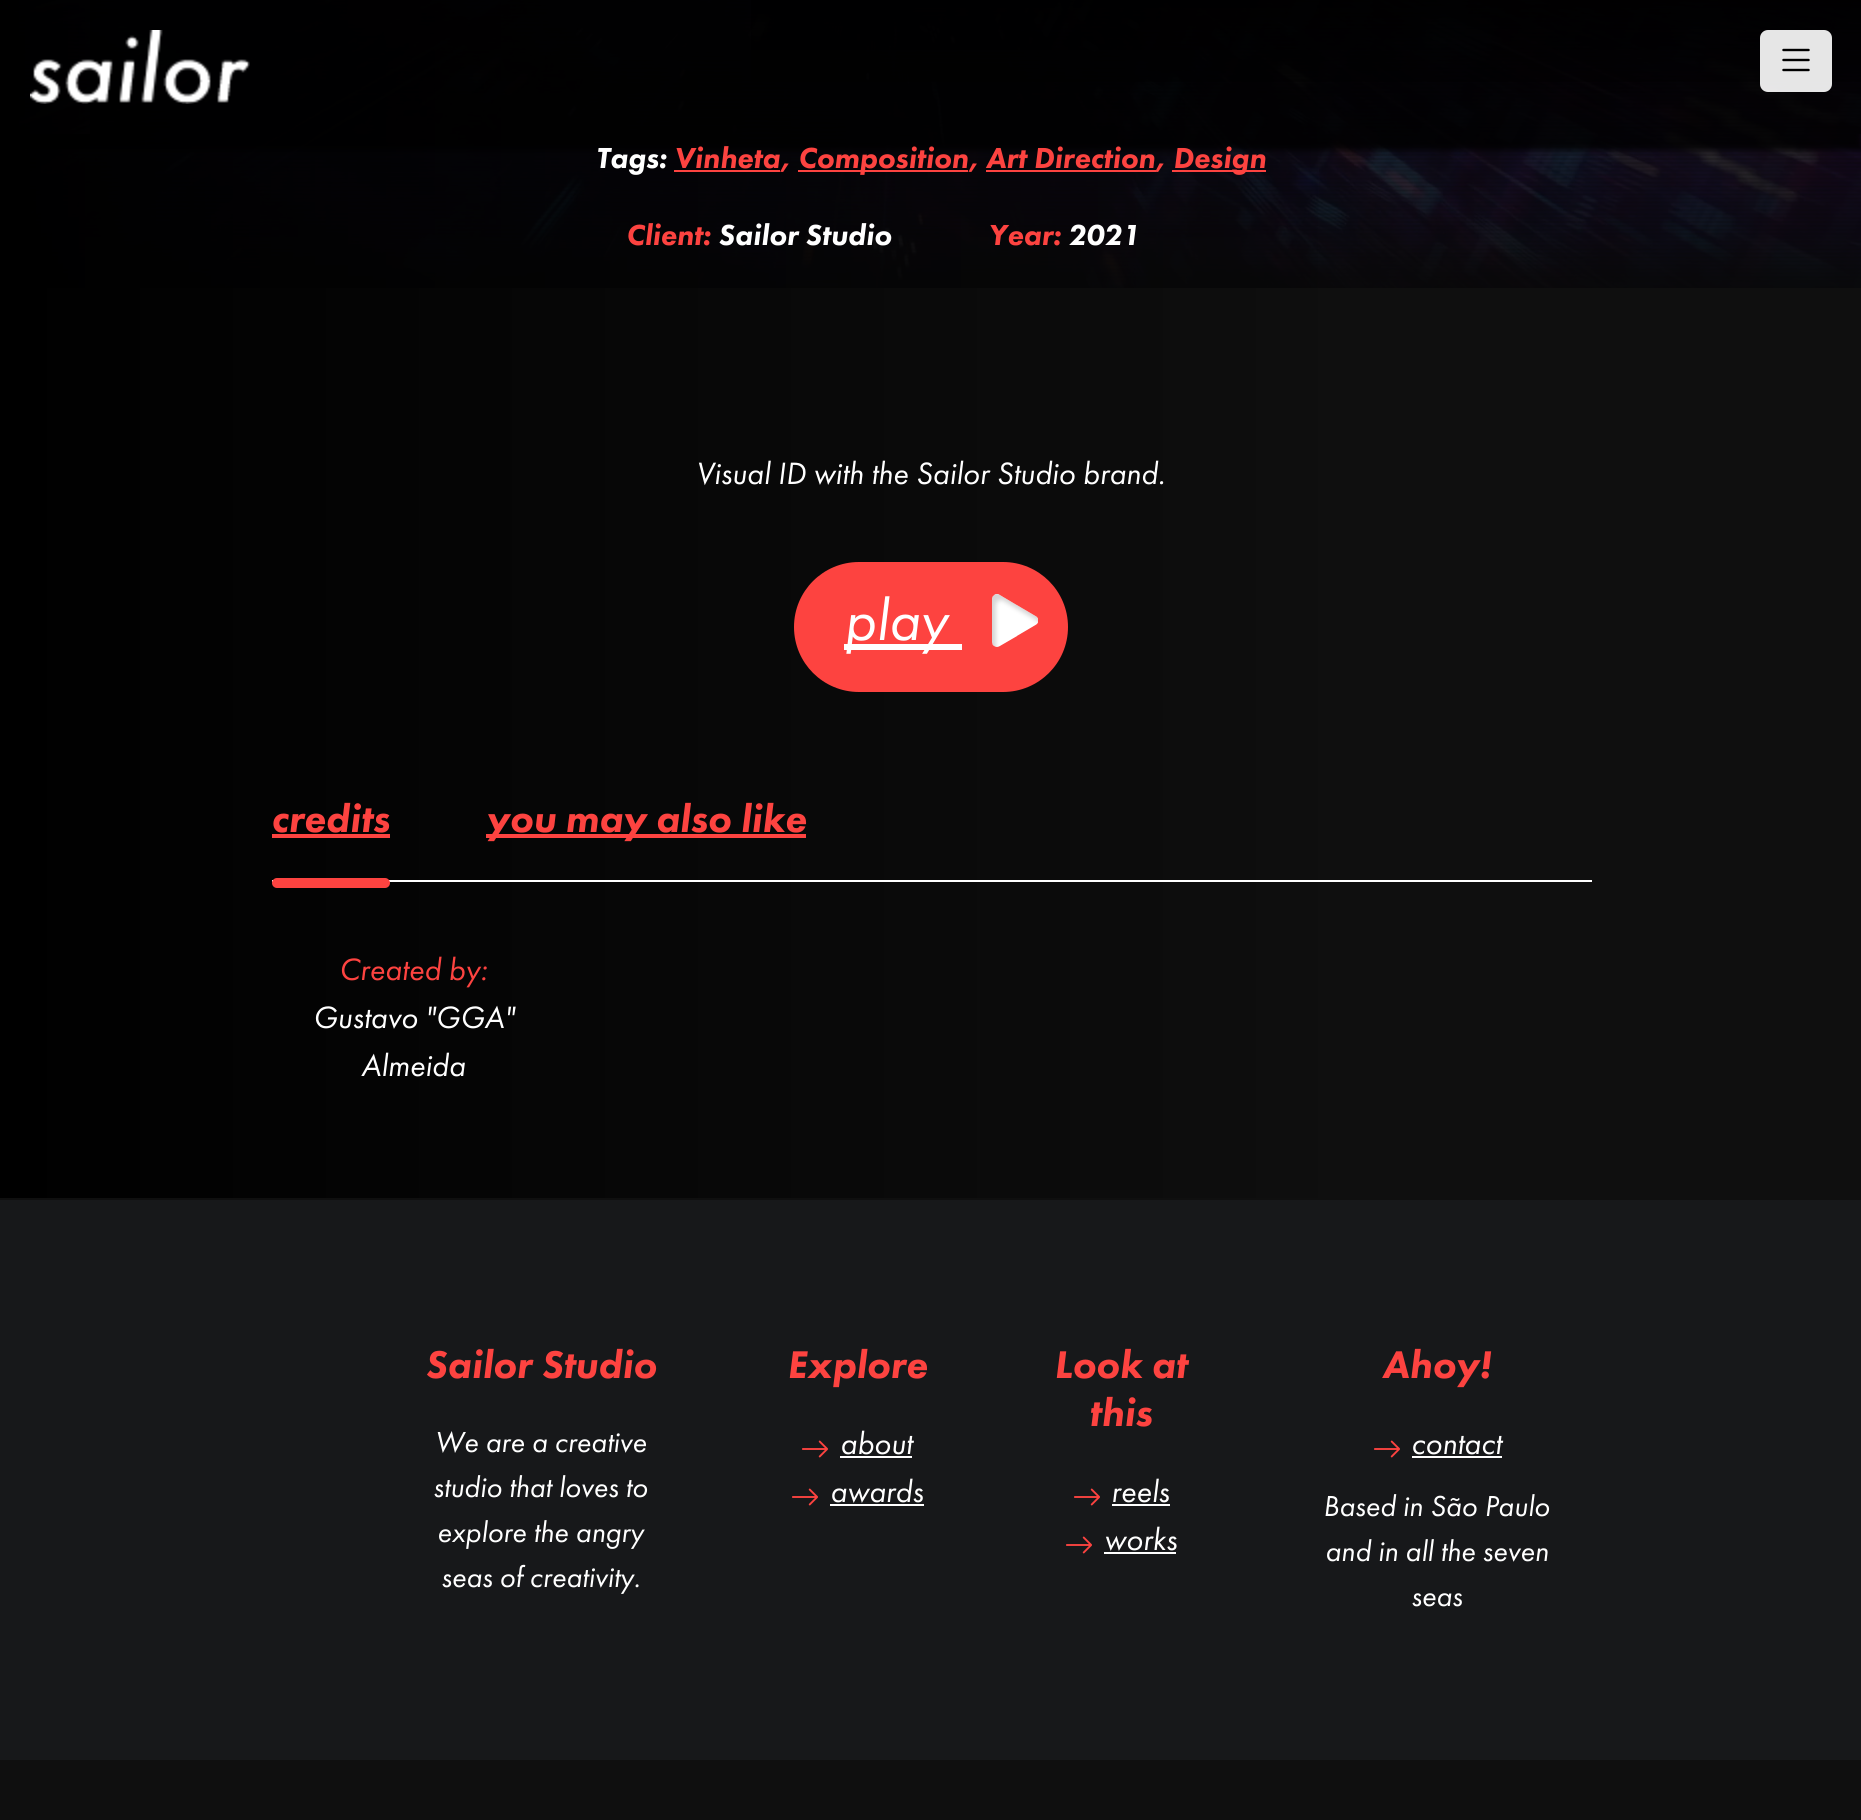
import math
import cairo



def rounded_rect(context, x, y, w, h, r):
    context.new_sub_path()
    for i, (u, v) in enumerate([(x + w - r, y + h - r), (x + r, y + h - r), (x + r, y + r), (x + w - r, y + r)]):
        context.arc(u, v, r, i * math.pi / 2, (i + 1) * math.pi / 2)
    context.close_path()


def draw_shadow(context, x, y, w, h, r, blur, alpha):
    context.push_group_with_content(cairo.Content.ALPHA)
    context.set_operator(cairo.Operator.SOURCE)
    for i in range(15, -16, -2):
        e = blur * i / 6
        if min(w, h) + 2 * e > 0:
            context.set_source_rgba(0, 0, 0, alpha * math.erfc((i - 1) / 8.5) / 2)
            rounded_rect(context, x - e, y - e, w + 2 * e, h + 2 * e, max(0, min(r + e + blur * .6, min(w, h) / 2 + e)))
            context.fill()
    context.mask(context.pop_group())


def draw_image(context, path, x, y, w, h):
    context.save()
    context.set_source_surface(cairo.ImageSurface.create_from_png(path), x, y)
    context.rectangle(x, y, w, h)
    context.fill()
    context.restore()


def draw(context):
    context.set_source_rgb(15 / 255, 15 / 255, 15 / 255)
    context.paint()
    draw_image(context, "images/3.png", 8, 0, 1853, 288)
    gradient = cairo.LinearGradient(931, -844, 931, 1432)
    gradient.add_color_stop_rgba(0, 15 / 255, 15 / 255, 15 / 255, 0)
    gradient.add_color_stop_rgba(0.95, 15 / 255, 15 / 255, 15 / 255, 1)
    context.set_source(gradient)
    context.rectangle(8, 0, 1853, 288)
    context.fill()
    gradient = cairo.LinearGradient(0, 219, 1396, 219)
    gradient.add_color_stop_rgba(0, 0, 0, 0, 1)
    gradient.add_color_stop_rgba(1, 0, 0, 0, 0)
    context.set_source(gradient)
    context.rectangle(0, 0, 1318, 1198)
    context.fill()
    context.save()
    context.rectangle(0, 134, 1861, 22)
    context.clip()
    context.set_source_rgb(0, 0, 0)
    draw_shadow(context, 0, 16, 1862, 134, 0, 3, 0.83)
    context.restore()
    context.set_source_rgba(0, 0, 0, 0.83)
    context.rectangle(90, 0, 1771, 134)
    context.fill()
    gradient = cairo.LinearGradient(931, 0, 931, 134)
    gradient.add_color_stop_rgba(0, 0, 0, 0, 0.8)
    gradient.add_color_stop_rgba(1, 0, 0, 0, 0)
    context.set_source(gradient)
    context.rectangle(751, 0, 1110, 82)
    context.fill()
    draw_image(context, "images/1.png", 30, 30, 220, 74)
    context.set_source_rgba(1, 1, 1, 0.9)
    rounded_rect(context, 1760, 30, 72, 62, 8)
    context.fill()
    draw_image(context, "images/2.png", 1782, 48, 28, 24)
    context.set_source_rgb(253 / 255, 67 / 255, 64 / 255)
    context.rectangle(674, 170, 106, 2)
    context.fill()
    context.rectangle(798, 170, 170, 2)
    context.fill()
    context.rectangle(986, 170, 170, 2)
    context.fill()
    context.rectangle(1172, 170, 94, 2)
    context.fill()
    rounded_rect(context, 794, 562, 274, 130, 65)
    context.fill()
    context.set_source_rgb(1, 1, 1)
    context.rectangle(844, 644, 118, 6)
    context.fill()
    draw_image(context, "images/4.png", 992, 594, 46, 53)
    context.rectangle(272, 880, 1320, 2)
    context.fill()
    context.set_source_rgb(253 / 255, 67 / 255, 64 / 255)
    context.rectangle(272, 834, 118, 4)
    context.fill()
    rounded_rect(context, 272, 878, 118, 10, 5)
    context.fill()
    context.rectangle(486, 834, 320, 4)
    context.fill()
    context.set_source_rgb(23 / 255, 24 / 255, 26 / 255)
    context.rectangle(0, 1200, 1861, 560)
    context.fill()
    draw_image(context, "images/5.png", 802, 1440, 26, 18)
    context.set_source_rgb(1, 1, 1)
    context.rectangle(840, 1456, 72, 2)
    context.fill()
    draw_image(context, "images/5.png", 792, 1488, 26, 18)
    context.rectangle(830, 1504, 94, 2)
    context.fill()
    draw_image(context, "images/5.png", 1074, 1488, 26, 18)
    context.rectangle(1112, 1504, 58, 2)
    context.fill()
    draw_image(context, "images/5.png", 1066, 1536, 26, 18)
    context.rectangle(1104, 1552, 72, 2)
    context.fill()
    draw_image(context, "images/5.png", 1374, 1440, 26, 18)
    context.rectangle(1412, 1456, 90, 2)
    context.fill()
    context.select_font_face("Futura PT Black", cairo.FontSlant.ITALIC)
    context.set_font_size(30)
    context.move_to(596, 168)
    context.show_text("Tags:")
    context.set_source_rgb(253 / 255, 67 / 255, 64 / 255)
    context.move_to(674, 168)
    context.show_text("Vinheta,")
    context.move_to(798, 168)
    context.show_text("Composition, Art Direction")
    context.move_to(1155, 168)
    context.show_text(",")
    context.move_to(1173, 168)
    context.show_text("Design")
    context.move_to(626, 245)
    context.show_text("Client:")
    context.set_source_rgb(1, 1, 1)
    context.move_to(718, 245)
    context.show_text("Sailor Studio")
    context.set_source_rgb(253 / 255, 67 / 255, 64 / 255)
    context.move_to(988, 245)
    context.show_text("Year:")
    context.set_source_rgb(1, 1, 1)
    context.move_to(1068, 245)
    context.show_text("2021")
    context.select_font_face("Futura PT", cairo.FontSlant.ITALIC)
    context.set_font_size(32)
    context.move_to(696, 484)
    context.show_text("Visual ID with the Sailor Studio brand.")
    context.set_font_size(60)
    context.move_to(844, 640)
    context.show_text("play")
    context.select_font_face("Futura PT Black", cairo.FontSlant.ITALIC)
    context.set_font_size(40)
    context.set_source_rgb(253 / 255, 67 / 255, 64 / 255)
    context.move_to(271, 832)
    context.show_text("credits")
    context.move_to(486, 832)
    context.show_text("you may also like")
    context.select_font_face("Futura PT", cairo.FontSlant.ITALIC)
    context.set_font_size(32)
    context.move_to(339, 980)
    context.show_text("Created by:")
    context.set_source_rgb(1, 1, 1)
    context.move_to(313, 1028)
    context.show_text("Gustavo \"GGA\"")
    context.move_to(361, 1076)
    context.show_text("Almeida")
    context.select_font_face("Futura PT Black", cairo.FontSlant.ITALIC)
    context.set_font_size(40)
    context.set_source_rgb(253 / 255, 67 / 255, 64 / 255)
    context.move_to(425, 1378)
    context.show_text("Sailor Studio")
    context.select_font_face("Futura PT", cairo.FontSlant.ITALIC)
    context.set_font_size(30)
    context.set_source_rgb(1, 1, 1)
    context.move_to(435, 1452)
    context.show_text("We are a creative")
    context.move_to(433, 1497)
    context.show_text("studio that loves to")
    context.move_to(437, 1542)
    context.show_text("explore the angry")
    context.move_to(441, 1587)
    context.show_text("seas of creativity.")
    context.select_font_face("Futura PT Black", cairo.FontSlant.ITALIC)
    context.set_font_size(40)
    context.set_source_rgb(253 / 255, 67 / 255, 64 / 255)
    context.move_to(787, 1378)
    context.show_text("Explore")
    context.select_font_face("Futura PT", cairo.FontSlant.ITALIC)
    context.set_font_size(32)
    context.set_source_rgb(1, 1, 1)
    context.move_to(840, 1454)
    context.show_text("about")
    context.move_to(830, 1502)
    context.show_text("awards")
    context.select_font_face("Futura PT Black", cairo.FontSlant.ITALIC)
    context.set_font_size(40)
    context.set_source_rgb(253 / 255, 67 / 255, 64 / 255)
    context.move_to(1054, 1378)
    context.show_text("Look at")
    context.move_to(1089, 1426)
    context.show_text("this")
    context.select_font_face("Futura PT", cairo.FontSlant.ITALIC)
    context.set_font_size(32)
    context.set_source_rgb(1, 1, 1)
    context.move_to(1111, 1502)
    context.show_text("reels")
    context.move_to(1104, 1550)
    context.show_text("works")
    context.select_font_face("Futura PT Black", cairo.FontSlant.ITALIC)
    context.set_font_size(40)
    context.set_source_rgb(253 / 255, 67 / 255, 64 / 255)
    context.move_to(1382, 1378)
    context.show_text("Ahoy!")
    context.select_font_face("Futura PT", cairo.FontSlant.ITALIC)
    context.set_font_size(32)
    context.set_source_rgb(1, 1, 1)
    context.move_to(1411, 1454)
    context.show_text("contact")
    context.set_font_size(30)
    context.move_to(1323, 1516)
    context.show_text("Based in São Paulo")
    context.move_to(1325, 1561)
    context.show_text("and in all the seven")
    context.move_to(1411, 1606)
    context.show_text("seas")


surface = cairo.ImageSurface(cairo.Format.RGB24, 1861, 1820)
context = cairo.Context(surface)
options = cairo.FontOptions()
options.set_hint_metrics(cairo.HintMetrics.OFF)
options.set_hint_style(cairo.HintStyle.NONE)
context.set_font_options(options)
context.set_miter_limit(4)
draw(context)
surface.write_to_png("out.png")
